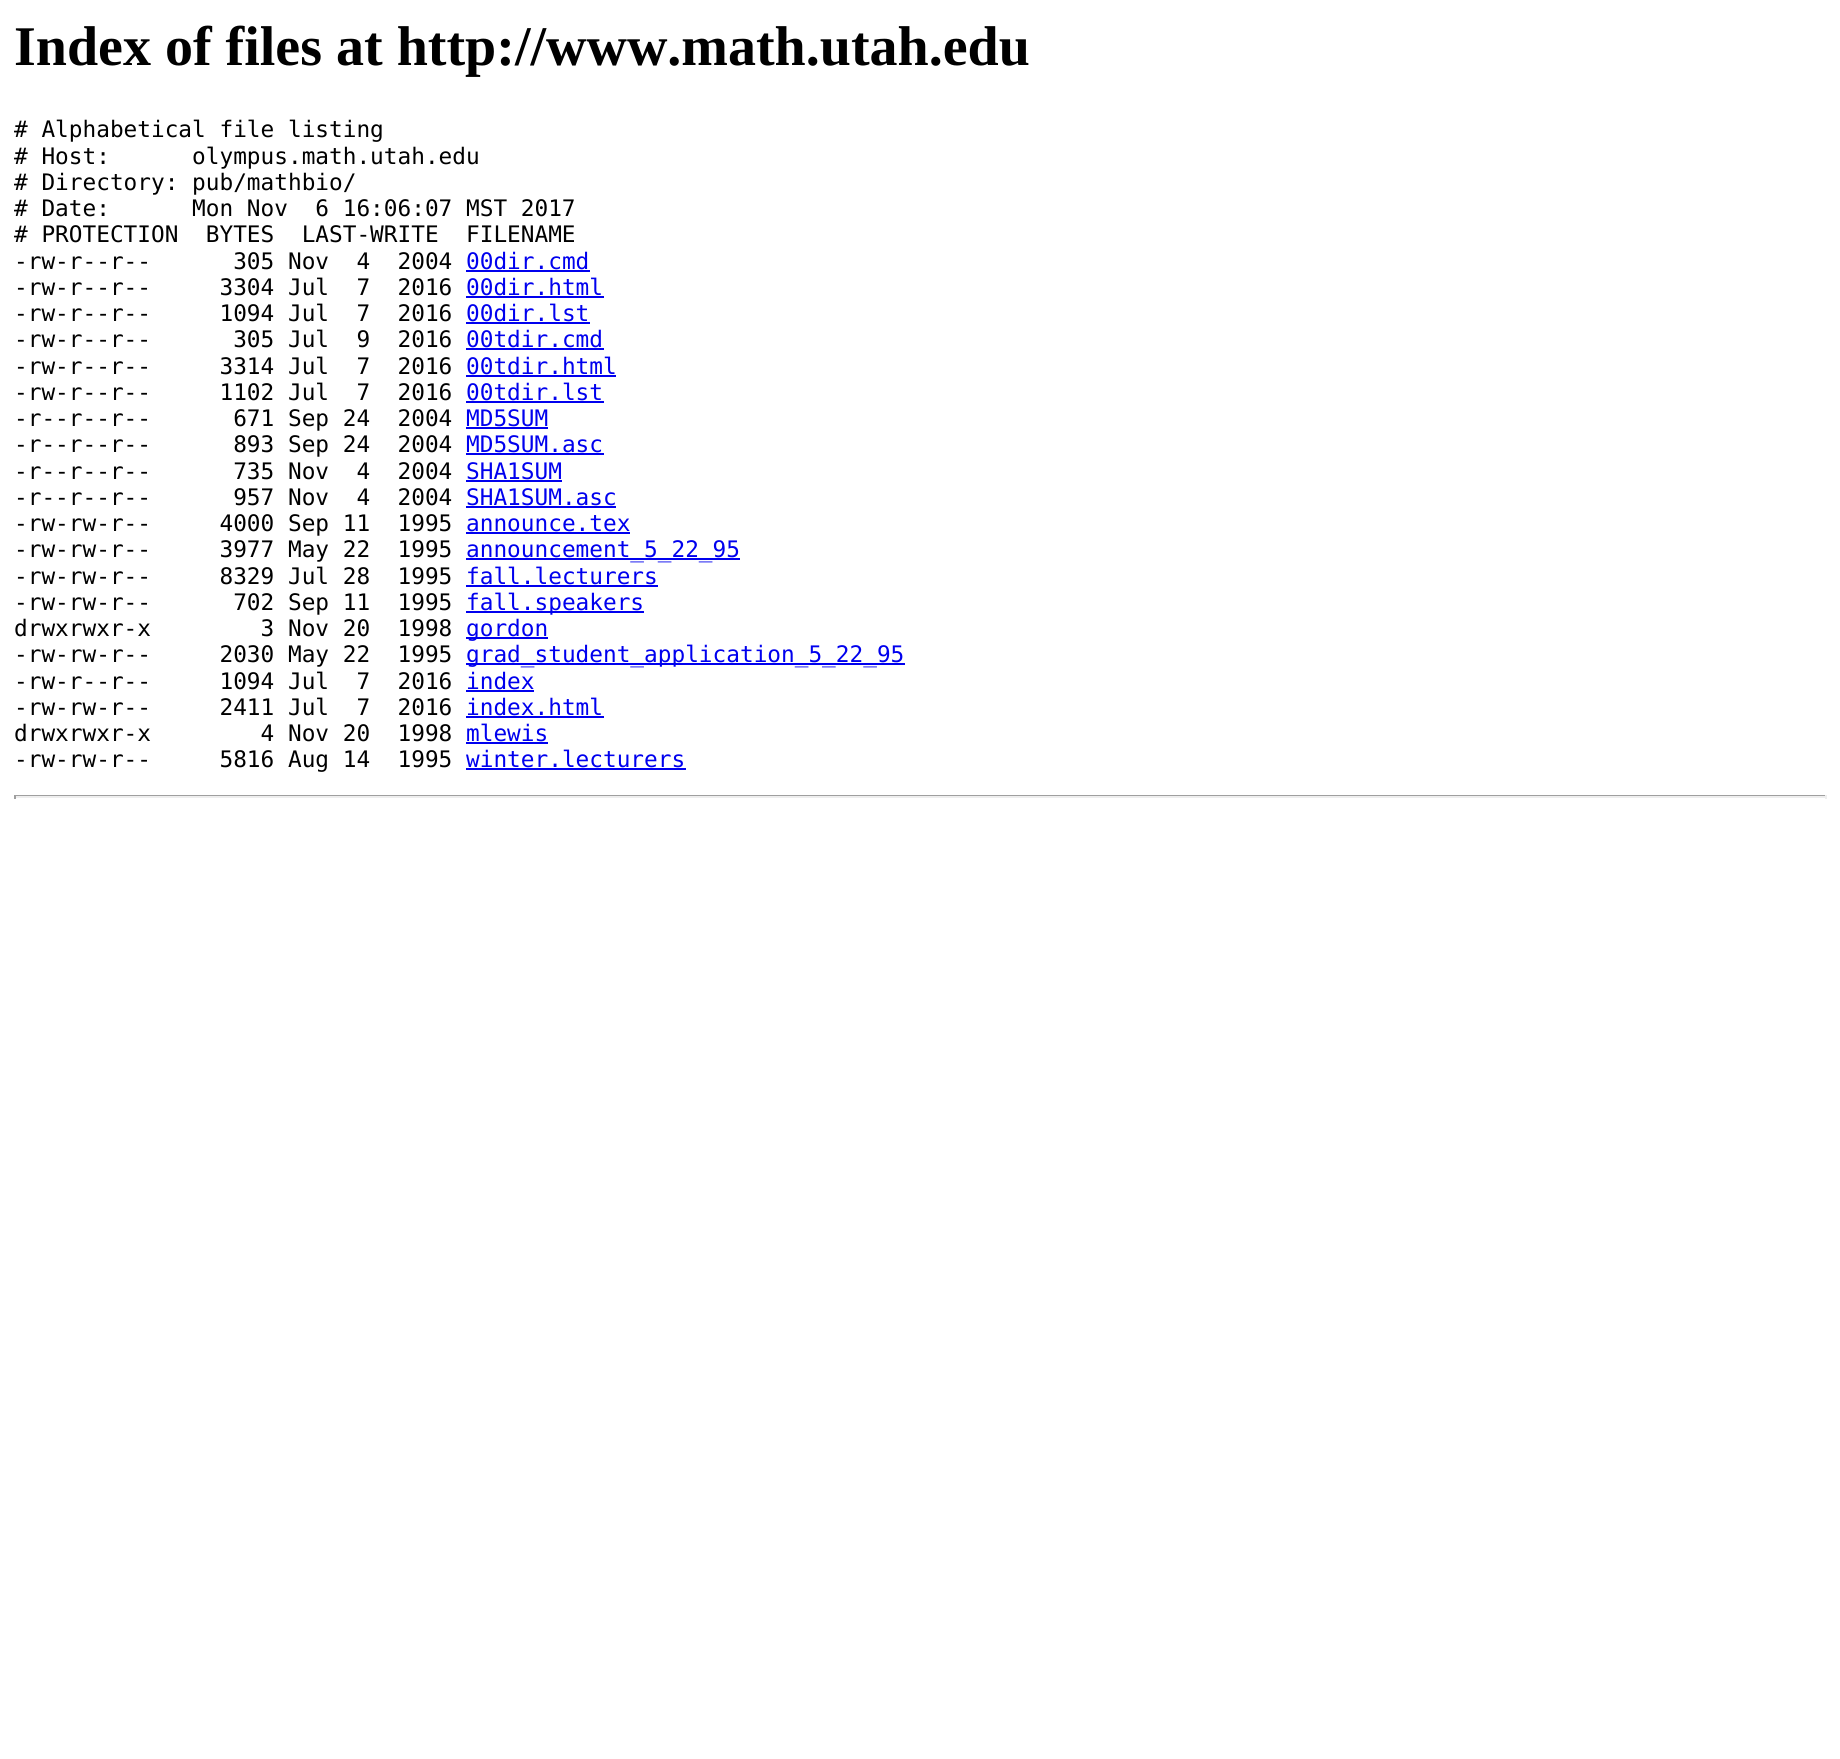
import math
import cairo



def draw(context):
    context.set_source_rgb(1, 1, 1)
    context.paint()
    context.set_source_rgb(0, 0, 238 / 255)
    context.rectangle(466, 270, 124, 2)
    context.fill()
    context.rectangle(466, 296, 138, 2)
    context.fill()
    context.rectangle(466, 322, 124, 2)
    context.fill()
    context.rectangle(466, 348, 138, 2)
    context.fill()
    context.rectangle(466, 375, 150, 2)
    context.fill()
    context.rectangle(466, 401, 138, 2)
    context.fill()
    context.rectangle(466, 427, 82, 2)
    context.fill()
    context.rectangle(466, 453, 138, 2)
    context.fill()
    context.rectangle(466, 480, 96, 2)
    context.fill()
    context.rectangle(466, 506, 150, 2)
    context.fill()
    context.rectangle(466, 532, 164, 2)
    context.fill()
    context.rectangle(466, 558, 274, 2)
    context.fill()
    context.rectangle(466, 585, 192, 2)
    context.fill()
    context.rectangle(466, 611, 178, 2)
    context.fill()
    context.rectangle(466, 637, 82, 2)
    context.fill()
    context.rectangle(466, 663, 439, 2)
    context.fill()
    context.rectangle(466, 690, 68, 2)
    context.fill()
    context.rectangle(466, 716, 138, 2)
    context.fill()
    context.rectangle(466, 742, 82, 2)
    context.fill()
    context.rectangle(466, 768, 220, 2)
    context.fill()
    context.set_source_rgb(159 / 255, 159 / 255, 159 / 255)
    context.rectangle(14, 795, 1813, 1)
    context.fill()
    context.set_source_rgb(238 / 255, 238 / 255, 238 / 255)
    context.rectangle(1825, 795, 2, 4)
    context.fill()
    context.rectangle(14, 796, 1813, 2)
    context.fill()
    context.set_source_rgb(159 / 255, 159 / 255, 159 / 255)
    context.rectangle(14, 795, 2, 4)
    context.fill()
    context.select_font_face("Liberation Serif", cairo.FontSlant.NORMAL, cairo.FontWeight.BOLD)
    context.set_font_size(56)
    context.set_source_rgb(0, 0, 0)
    context.move_to(14, 65)
    context.show_text("Index of files at http://www.math.utah.edu")
    context.select_font_face("DejaVu Sans Mono")
    context.set_font_size(22.75)
    context.move_to(14, 137)
    context.show_text("# Alphabetical file listing")
    context.move_to(14, 164)
    context.show_text("# Host:      olympus.math.utah.edu")
    context.move_to(14, 190)
    context.show_text("# Directory: pub/mathbio/")
    context.move_to(14, 216)
    context.show_text("# Date:      Mon Nov  6 16:06:07 MST 2017")
    context.move_to(14, 242)
    context.show_text("# PROTECTION  BYTES  LAST-WRITE  FILENAME")
    context.move_to(14, 269)
    context.show_text("-rw-r--r--      305 Nov  4  2004")
    context.set_source_rgb(0, 0, 238 / 255)
    context.move_to(466, 269)
    context.show_text("00dir.cmd")
    context.set_source_rgb(0, 0, 0)
    context.move_to(14, 295)
    context.show_text("-rw-r--r--     3304 Jul  7  2016")
    context.set_source_rgb(0, 0, 238 / 255)
    context.move_to(466, 295)
    context.show_text("00dir.html")
    context.set_source_rgb(0, 0, 0)
    context.move_to(14, 321)
    context.show_text("-rw-r--r--     1094 Jul  7  2016")
    context.set_source_rgb(0, 0, 238 / 255)
    context.move_to(466, 321)
    context.show_text("00dir.lst")
    context.set_source_rgb(0, 0, 0)
    context.move_to(14, 347)
    context.show_text("-rw-r--r--      305 Jul  9  2016")
    context.set_source_rgb(0, 0, 238 / 255)
    context.move_to(466, 347)
    context.show_text("00tdir.cmd")
    context.set_source_rgb(0, 0, 0)
    context.move_to(14, 374)
    context.show_text("-rw-r--r--     3314 Jul  7  2016")
    context.set_source_rgb(0, 0, 238 / 255)
    context.move_to(466, 374)
    context.show_text("00tdir.html")
    context.set_source_rgb(0, 0, 0)
    context.move_to(14, 400)
    context.show_text("-rw-r--r--     1102 Jul  7  2016")
    context.set_source_rgb(0, 0, 238 / 255)
    context.move_to(466, 400)
    context.show_text("00tdir.lst")
    context.set_source_rgb(0, 0, 0)
    context.move_to(14, 426)
    context.show_text("-r--r--r--      671 Sep 24  2004")
    context.set_source_rgb(0, 0, 238 / 255)
    context.move_to(466, 426)
    context.show_text("MD5SUM")
    context.set_source_rgb(0, 0, 0)
    context.move_to(14, 452)
    context.show_text("-r--r--r--      893 Sep 24  2004")
    context.set_source_rgb(0, 0, 238 / 255)
    context.move_to(466, 452)
    context.show_text("MD5SUM.asc")
    context.set_source_rgb(0, 0, 0)
    context.move_to(14, 479)
    context.show_text("-r--r--r--      735 Nov  4  2004")
    context.set_source_rgb(0, 0, 238 / 255)
    context.move_to(466, 479)
    context.show_text("SHA1SUM")
    context.set_source_rgb(0, 0, 0)
    context.move_to(14, 505)
    context.show_text("-r--r--r--      957 Nov  4  2004")
    context.set_source_rgb(0, 0, 238 / 255)
    context.move_to(466, 505)
    context.show_text("SHA1SUM.asc")
    context.set_source_rgb(0, 0, 0)
    context.move_to(14, 531)
    context.show_text("-rw-rw-r--     4000 Sep 11  1995")
    context.set_source_rgb(0, 0, 238 / 255)
    context.move_to(466, 531)
    context.show_text("announce.tex")
    context.set_source_rgb(0, 0, 0)
    context.move_to(14, 557)
    context.show_text("-rw-rw-r--     3977 May 22  1995")
    context.set_source_rgb(0, 0, 238 / 255)
    context.move_to(466, 557)
    context.show_text("announcement_5_22_95")
    context.set_source_rgb(0, 0, 0)
    context.move_to(14, 584)
    context.show_text("-rw-rw-r--     8329 Jul 28  1995")
    context.set_source_rgb(0, 0, 238 / 255)
    context.move_to(466, 584)
    context.show_text("fall.lecturers")
    context.set_source_rgb(0, 0, 0)
    context.move_to(14, 610)
    context.show_text("-rw-rw-r--      702 Sep 11  1995")
    context.set_source_rgb(0, 0, 238 / 255)
    context.move_to(466, 610)
    context.show_text("fall.speakers")
    context.set_source_rgb(0, 0, 0)
    context.move_to(14, 636)
    context.show_text("drwxrwxr-x        3 Nov 20  1998")
    context.set_source_rgb(0, 0, 238 / 255)
    context.move_to(466, 636)
    context.show_text("gordon")
    context.set_source_rgb(0, 0, 0)
    context.move_to(14, 662)
    context.show_text("-rw-rw-r--     2030 May 22  1995")
    context.set_source_rgb(0, 0, 238 / 255)
    context.move_to(466, 662)
    context.show_text("grad_student_application_5_22_95")
    context.set_source_rgb(0, 0, 0)
    context.move_to(14, 689)
    context.show_text("-rw-r--r--     1094 Jul  7  2016")
    context.set_source_rgb(0, 0, 238 / 255)
    context.move_to(466, 689)
    context.show_text("index")
    context.set_source_rgb(0, 0, 0)
    context.move_to(14, 715)
    context.show_text("-rw-rw-r--     2411 Jul  7  2016")
    context.set_source_rgb(0, 0, 238 / 255)
    context.move_to(466, 715)
    context.show_text("index.html")
    context.set_source_rgb(0, 0, 0)
    context.move_to(14, 741)
    context.show_text("drwxrwxr-x        4 Nov 20  1998")
    context.set_source_rgb(0, 0, 238 / 255)
    context.move_to(466, 741)
    context.show_text("mlewis")
    context.set_source_rgb(0, 0, 0)
    context.move_to(14, 767)
    context.show_text("-rw-rw-r--     5816 Aug 14  1995")
    context.set_source_rgb(0, 0, 238 / 255)
    context.move_to(466, 767)
    context.show_text("winter.lecturers")


surface = cairo.ImageSurface(cairo.Format.RGB24, 1840, 1759)
context = cairo.Context(surface)
options = cairo.FontOptions()
options.set_hint_metrics(cairo.HintMetrics.OFF)
options.set_hint_style(cairo.HintStyle.NONE)
context.set_font_options(options)
context.set_miter_limit(4)
draw(context)
surface.write_to_png("out.png")
